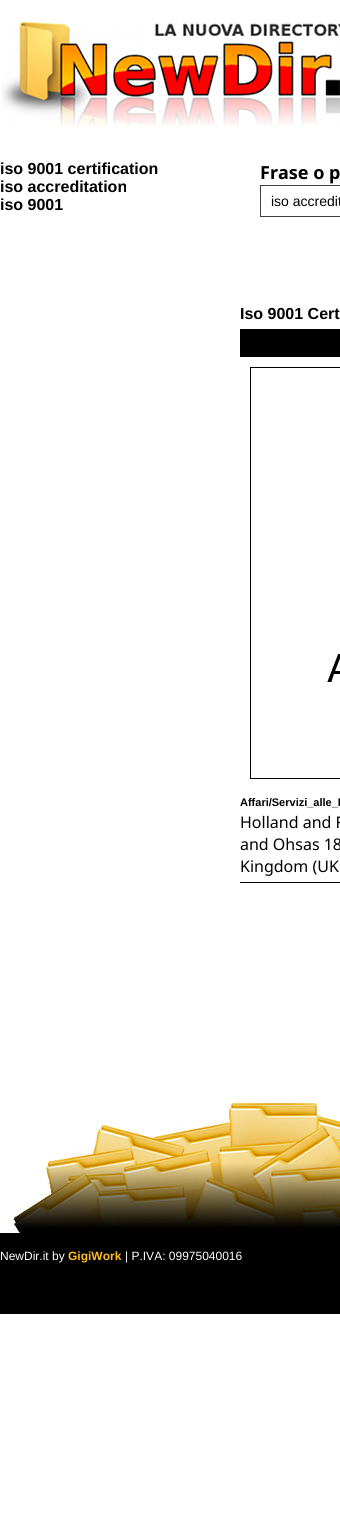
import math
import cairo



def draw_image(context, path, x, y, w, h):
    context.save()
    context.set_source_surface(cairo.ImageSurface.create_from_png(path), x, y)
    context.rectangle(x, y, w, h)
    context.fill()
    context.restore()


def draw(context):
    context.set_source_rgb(1, 1, 1)
    context.paint()
    draw_image(context, "images/1.png", 1, 21, 339, 106)
    context.rectangle(260.5, 185.5, 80, 31)
    context.set_source_rgb(64 / 255, 64 / 255, 64 / 255)
    context.set_line_width(1)
    context.stroke()
    context.set_source_rgb(0, 0, 0)
    context.rectangle(240, 882, 100, 1)
    context.fill()
    context.rectangle(240, 329, 100, 28)
    context.fill()
    context.rectangle(250.5, 367.5, 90, 411)
    context.stroke()
    draw_image(context, "images/2.png", 327, 654, 13, 28)
    draw_image(context, "images/3.png", 0, 1103, 340, 131)
    context.rectangle(0, 1234, 340, 80)
    context.fill()
    context.select_font_face("Liberation Sans", cairo.FontSlant.NORMAL, cairo.FontWeight.BOLD)
    context.set_font_size(16)
    context.move_to(0, 174)
    context.show_text("iso 9001 certification")
    context.move_to(0, 192)
    context.show_text("iso accreditation")
    context.move_to(0, 210)
    context.show_text("iso 9001")
    context.select_font_face("Noto Sans", cairo.FontSlant.NORMAL, cairo.FontWeight.BOLD)
    context.set_font_size(18)
    context.move_to(260, 179)
    context.show_text("Frase o p")
    context.select_font_face("Liberation Sans")
    context.set_font_size(14)
    context.move_to(271, 206)
    context.show_text("iso accredit")
    context.select_font_face("Liberation Sans", cairo.FontSlant.NORMAL, cairo.FontWeight.BOLD)
    context.set_font_size(16)
    context.move_to(240, 319)
    context.show_text("Iso 9001 Cert")
    context.set_font_size(11)
    context.move_to(240, 806)
    context.show_text("Affari/Servizi_alle_I")
    context.select_font_face("Noto Sans")
    context.set_font_size(16)
    context.move_to(240, 828)
    context.show_text("Holland and F")
    context.move_to(240, 850)
    context.show_text("and Ohsas 18")
    context.move_to(240, 872)
    context.show_text("Kingdom (UK")
    context.select_font_face("Liberation Sans")
    context.set_font_size(12)
    context.set_source_rgb(1, 1, 1)
    context.move_to(0, 1260)
    context.show_text("NewDir.it by")
    context.select_font_face("Liberation Sans", cairo.FontSlant.NORMAL, cairo.FontWeight.BOLD)
    context.set_source_rgb(1, 190 / 255, 28 / 255)
    context.move_to(68, 1260)
    context.show_text("GigiWork")
    context.select_font_face("Liberation Sans")
    context.set_source_rgb(1, 1, 1)
    context.move_to(125, 1260)
    context.show_text("| P.IVA: 09975040016")


surface = cairo.ImageSurface(cairo.Format.RGB24, 340, 1525)
context = cairo.Context(surface)
options = cairo.FontOptions()
options.set_hint_metrics(cairo.HintMetrics.OFF)
options.set_hint_style(cairo.HintStyle.NONE)
context.set_font_options(options)
context.set_miter_limit(4)
draw(context)
surface.write_to_png("out.png")
